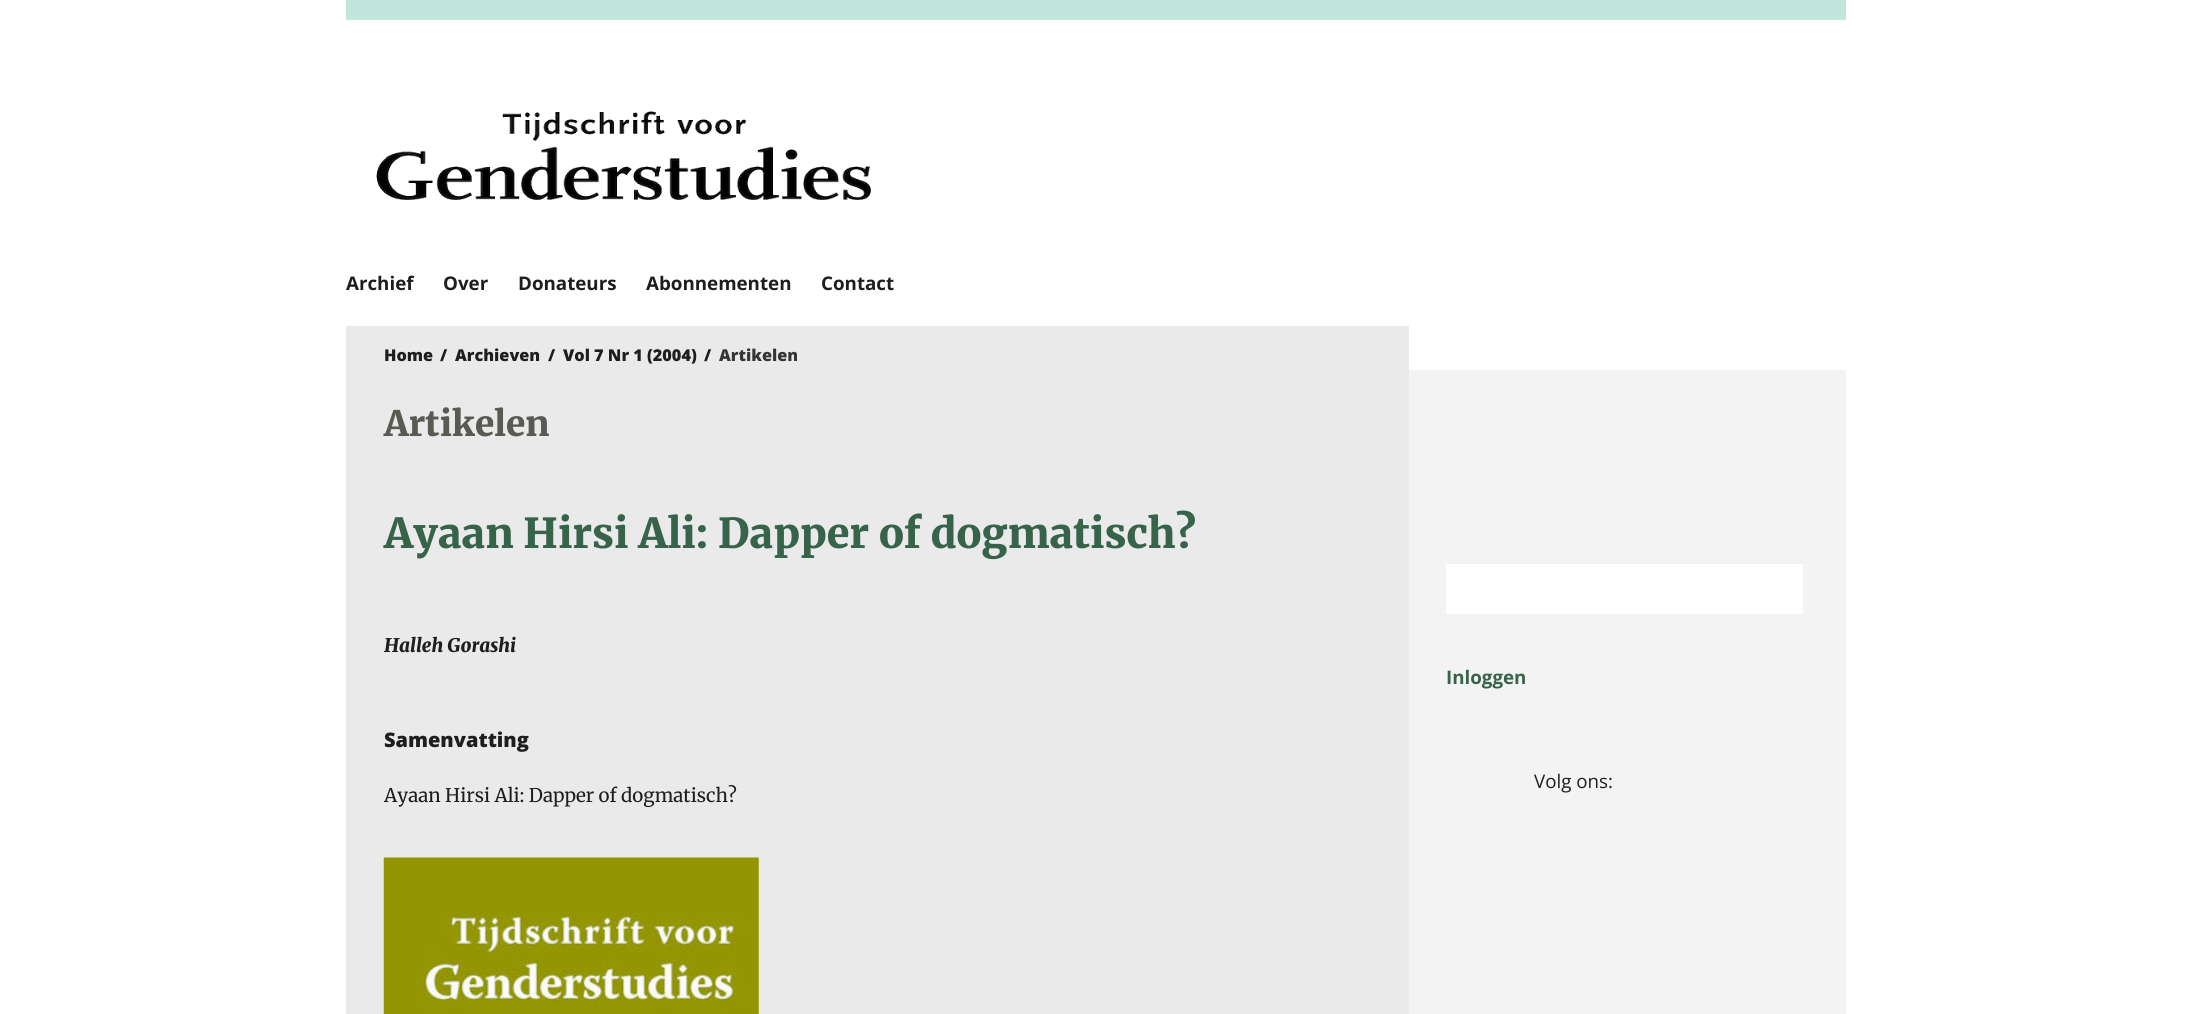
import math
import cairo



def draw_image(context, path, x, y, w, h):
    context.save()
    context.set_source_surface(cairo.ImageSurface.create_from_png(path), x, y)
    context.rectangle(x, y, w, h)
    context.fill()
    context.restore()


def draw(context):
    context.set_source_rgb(1, 1, 1)
    context.paint()
    context.set_source_rgb(193 / 255, 231 / 255, 221 / 255)
    context.rectangle(346, 0, 1500, 20)
    context.fill()
    draw_image(context, "images/1.png", 376, 111, 495, 89)
    context.set_source_rgb(234 / 255, 234 / 255, 234 / 255)
    context.rectangle(346, 326, 1063, 688)
    context.fill()
    draw_image(context, "images/2.png", 383, 857, 376, 157)
    context.set_source_rgb(243 / 255, 243 / 255, 243 / 255)
    context.rectangle(1409, 370, 437, 644)
    context.fill()
    context.set_source_rgb(1, 1, 1)
    context.rectangle(1446, 564, 357, 50)
    context.fill()
    context.select_font_face("Open Sans", cairo.FontSlant.NORMAL, cairo.FontWeight.BOLD)
    context.set_font_size(18.75)
    context.set_source_rgb(30 / 255, 30 / 255, 30 / 255)
    context.move_to(346, 290)
    context.show_text("Archief")
    context.move_to(443, 290)
    context.show_text("Over")
    context.move_to(518, 290)
    context.show_text("Donateurs")
    context.move_to(646, 290)
    context.show_text("Abonnementen")
    context.move_to(821, 290)
    context.show_text("Contact")
    context.select_font_face("Open Sans ExtraBold")
    context.set_font_size(16.25)
    context.move_to(384, 361)
    context.show_text("Home")
    context.move_to(440, 361)
    context.show_text("/")
    context.move_to(455, 361)
    context.show_text("Archieven")
    context.move_to(548, 361)
    context.show_text("/")
    context.move_to(563, 361)
    context.show_text("Vol 7 Nr 1 (2004)")
    context.move_to(704, 361)
    context.show_text("/")
    context.set_source_rgb(53 / 255, 53 / 255, 53 / 255)
    context.move_to(719, 361)
    context.show_text("Artikelen")
    context.select_font_face("Merriweather Black")
    context.set_font_size(35)
    context.set_source_rgb(90 / 255, 90 / 255, 85 / 255)
    context.move_to(384, 436)
    context.show_text("Artikelen")
    context.set_font_size(41.25)
    context.set_source_rgb(55 / 255, 99 / 255, 74 / 255)
    context.move_to(384, 548)
    context.show_text("Ayaan Hirsi Ali: Dapper of dogmatisch?")
    context.select_font_face("Merriweather Black", cairo.FontSlant.ITALIC)
    context.set_font_size(18.75)
    context.set_source_rgb(30 / 255, 30 / 255, 30 / 255)
    context.move_to(384, 652)
    context.show_text("Halleh Gorashi")
    context.select_font_face("Open Sans ExtraBold")
    context.set_font_size(20)
    context.move_to(384, 747)
    context.show_text("Samenvatting")
    context.select_font_face("Merriweather")
    context.set_font_size(18.75)
    context.move_to(384, 802)
    context.show_text("Ayaan Hirsi Ali: Dapper of dogmatisch?")
    context.select_font_face("Open Sans", cairo.FontSlant.NORMAL, cairo.FontWeight.BOLD)
    context.set_source_rgb(55 / 255, 99 / 255, 74 / 255)
    context.move_to(1446, 684)
    context.show_text("Inloggen")
    context.select_font_face("Open Sans")
    context.set_source_rgb(30 / 255, 30 / 255, 30 / 255)
    context.move_to(1534, 788)
    context.show_text("Volg ons:")


surface = cairo.ImageSurface(cairo.Format.RGB24, 2192, 1014)
context = cairo.Context(surface)
options = cairo.FontOptions()
options.set_hint_metrics(cairo.HintMetrics.OFF)
options.set_hint_style(cairo.HintStyle.NONE)
context.set_font_options(options)
context.set_miter_limit(4)
draw(context)
surface.write_to_png("out.png")
